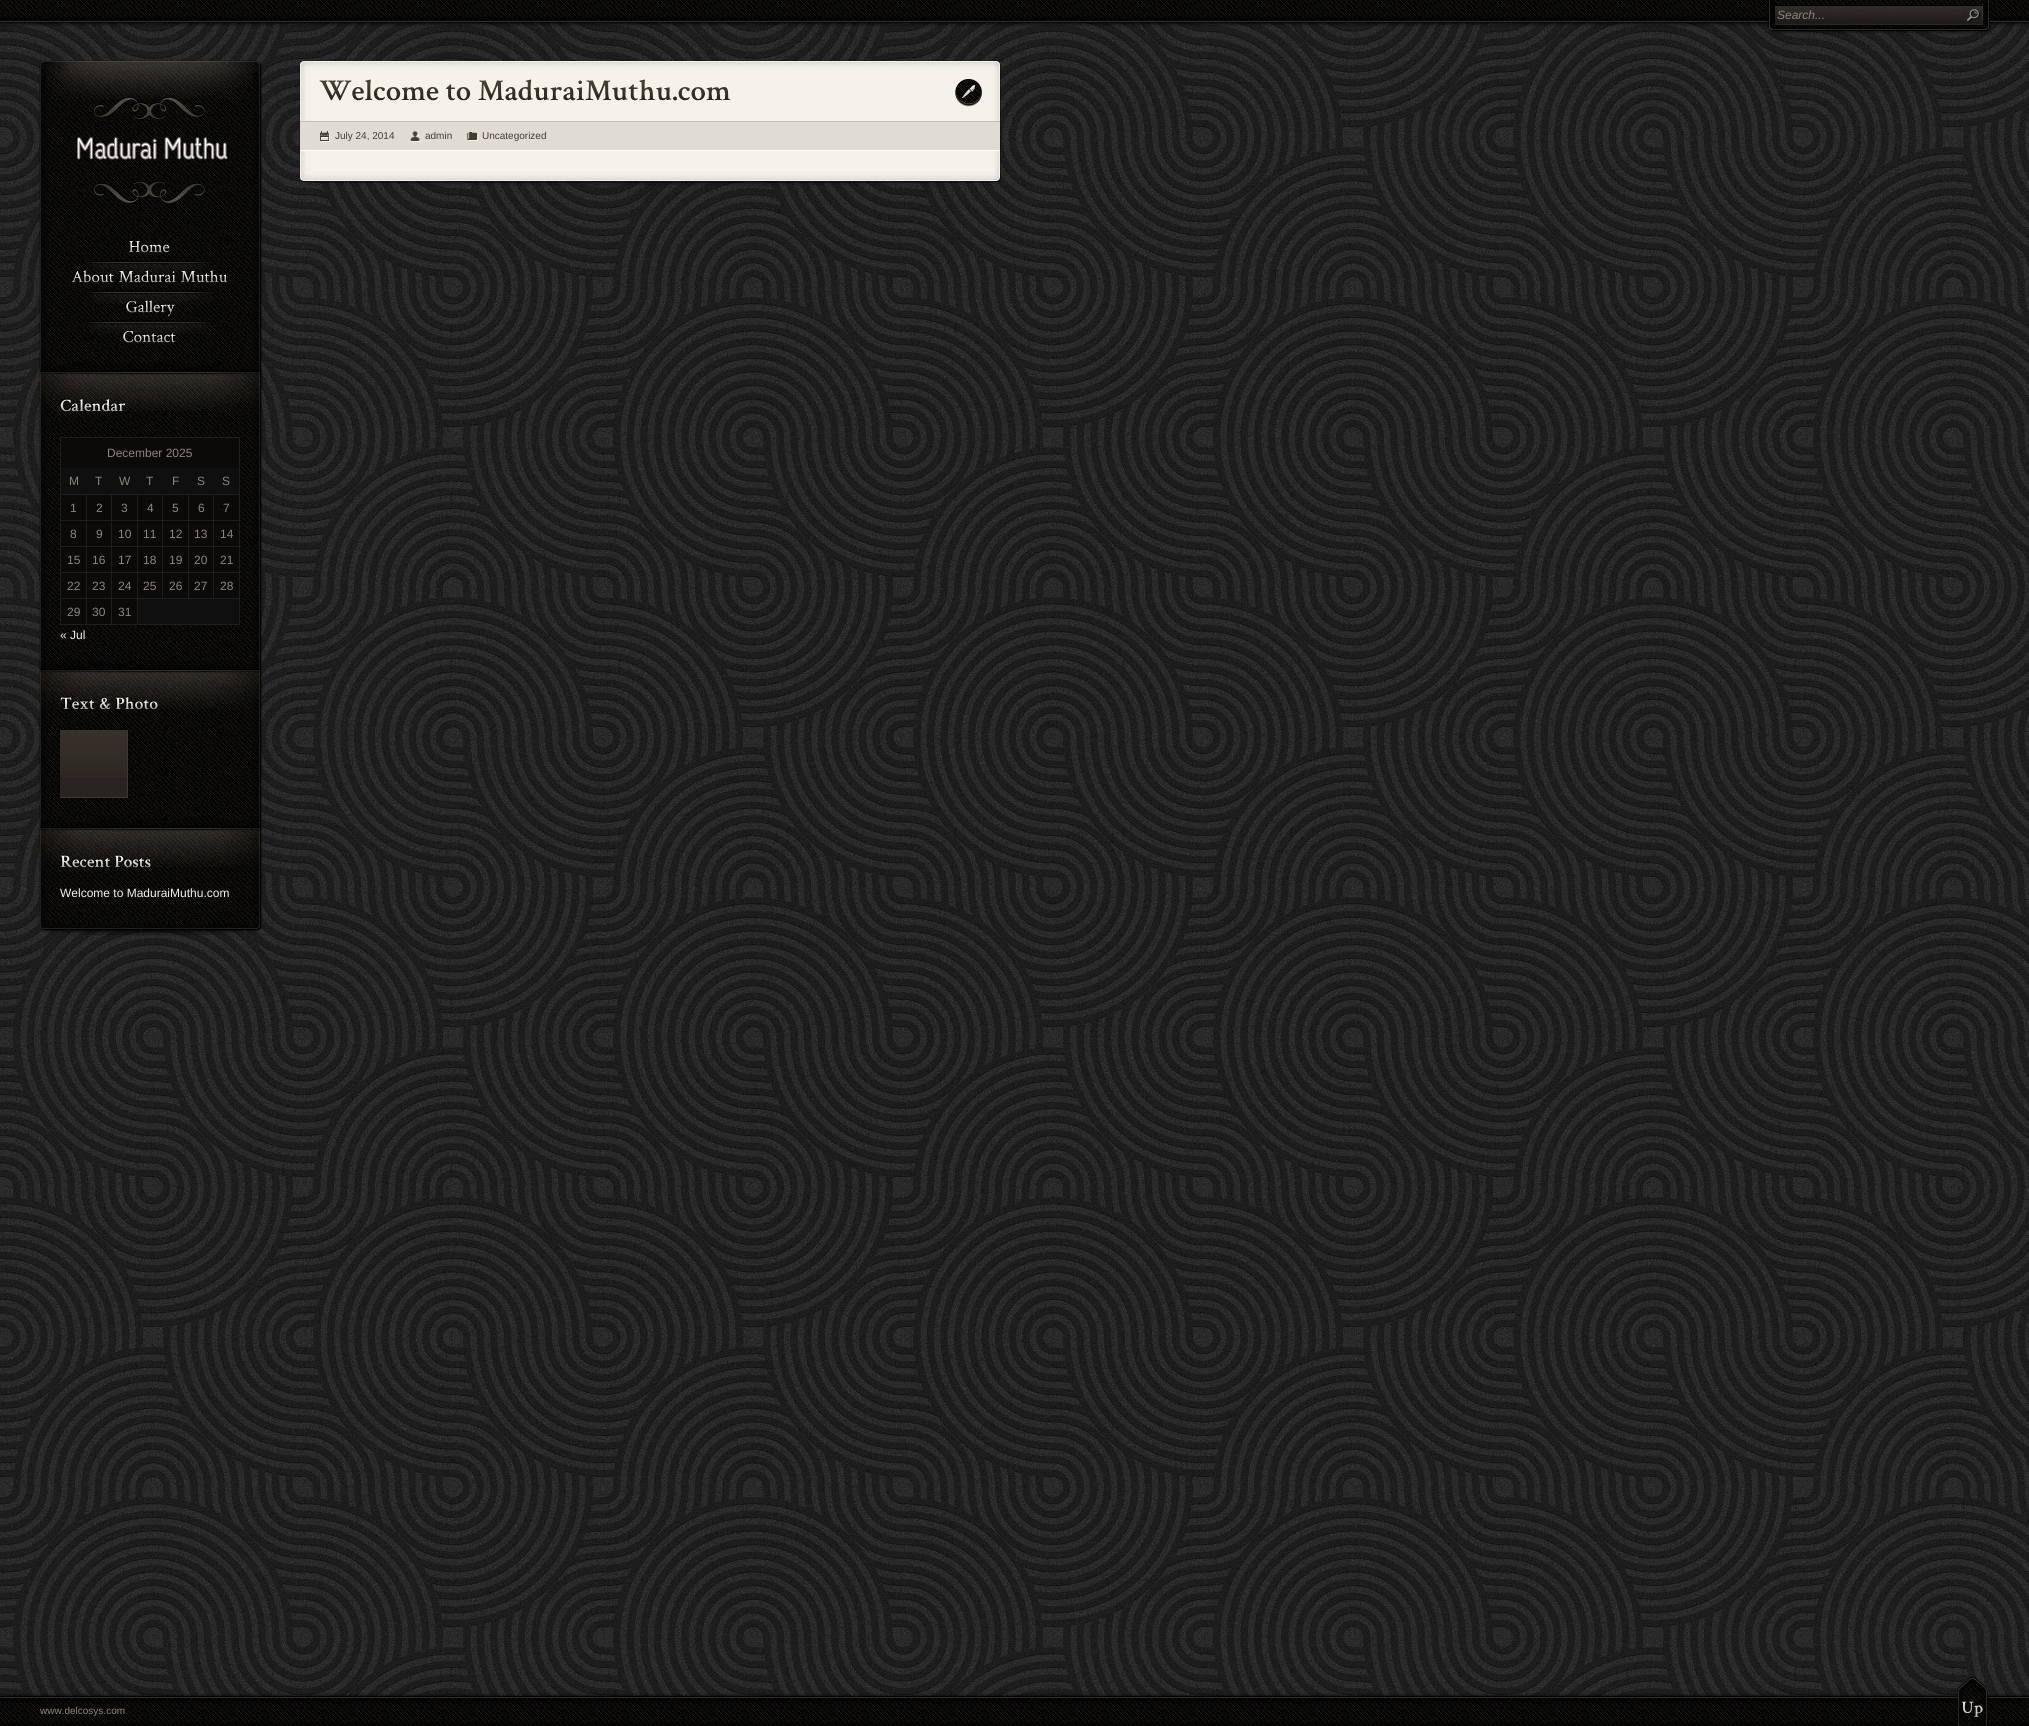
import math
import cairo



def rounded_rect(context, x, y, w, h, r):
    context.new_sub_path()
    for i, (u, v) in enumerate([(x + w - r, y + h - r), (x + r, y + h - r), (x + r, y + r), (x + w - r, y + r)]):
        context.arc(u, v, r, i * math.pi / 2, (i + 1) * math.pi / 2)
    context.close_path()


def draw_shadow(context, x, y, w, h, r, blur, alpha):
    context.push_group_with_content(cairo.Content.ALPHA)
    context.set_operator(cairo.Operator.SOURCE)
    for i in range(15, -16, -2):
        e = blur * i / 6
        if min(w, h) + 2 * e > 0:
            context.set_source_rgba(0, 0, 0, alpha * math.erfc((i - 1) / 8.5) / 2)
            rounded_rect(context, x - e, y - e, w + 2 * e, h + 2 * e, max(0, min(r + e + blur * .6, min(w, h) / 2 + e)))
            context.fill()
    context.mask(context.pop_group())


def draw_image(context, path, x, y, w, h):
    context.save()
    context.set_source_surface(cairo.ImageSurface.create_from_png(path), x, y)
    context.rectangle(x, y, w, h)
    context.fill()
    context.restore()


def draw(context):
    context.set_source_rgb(1, 1, 1)
    context.paint()
    draw_image(context, "images/1.png", 0, 22, 2029, 1675)
    draw_image(context, "images/2.png", 0, 22, 2029, 1675)
    draw_image(context, "images/3.png", 0, 0, 2029, 27)
    draw_image(context, "images/4.png", 1766, 0, 226, 34)
    draw_image(context, "images/5.png", 1775, 6, 187, 15)
    draw_image(context, "images/6.png", 1967, 9, 13, 13)
    draw_image(context, "images/7.png", 299, 60, 702, 11)
    draw_image(context, "images/8.png", 299, 71, 702, 100)
    draw_image(context, "images/9.png", 319, 79, 120, 23)
    draw_image(context, "images/10.png", 446, 84, 25, 18)
    draw_image(context, "images/11.png", 478, 79, 253, 23)
    draw_image(context, "images/12.png", 955, 79, 27, 28)
    context.set_source_rgb(224 / 255, 220 / 255, 212 / 255)
    context.rectangle(300, 122, 700, 28)
    context.fill()
    context.set_source_rgb(197 / 255, 193 / 255, 186 / 255)
    context.rectangle(300, 121, 700, 1)
    context.fill()
    context.set_source_rgb(253 / 255, 253 / 255, 252 / 255)
    context.rectangle(300, 150, 700, 1)
    context.fill()
    draw_image(context, "images/13.png", 320, 131, 10, 11)
    draw_image(context, "images/14.png", 410, 131, 11, 11)
    draw_image(context, "images/15.png", 467, 132, 12, 9)
    draw_image(context, "images/16.png", 299, 171, 702, 15)
    draw_image(context, "images/17.png", 39, 60, 223, 13)
    draw_image(context, "images/18.png", 39, 73, 223, 850)
    draw_image(context, "images/19.png", 47, 73, 206, 26)
    draw_image(context, "images/20.png", 77, 96, 151, 107)
    draw_image(context, "images/21.png", 128, 240, 42, 13)
    draw_image(context, "images/22.png", 77, 260, 146, 14)
    draw_image(context, "images/23.png", 72, 269, 42, 14)
    draw_image(context, "images/24.png", 119, 269, 57, 14)
    draw_image(context, "images/25.png", 180, 270, 47, 13)
    draw_image(context, "images/26.png", 77, 290, 146, 14)
    draw_image(context, "images/27.png", 125, 299, 50, 17)
    draw_image(context, "images/28.png", 77, 320, 146, 14)
    draw_image(context, "images/29.png", 122, 330, 54, 13)
    draw_image(context, "images/30.png", 40, 362, 220, 49)
    draw_image(context, "images/31.png", 59, 398, 67, 14)
    context.set_source_rgb(15 / 255, 15 / 255, 15 / 255)
    context.rectangle(61, 468, 178, 156)
    context.fill()
    context.set_source_rgb(32 / 255, 29 / 255, 29 / 255)
    context.rectangle(60, 437, 180, 1)
    context.fill()
    context.rectangle(239, 437, 1, 188)
    context.fill()
    context.rectangle(60, 624, 180, 1)
    context.fill()
    context.rectangle(60, 437, 1, 188)
    context.fill()
    context.set_source_rgb(12 / 255, 9 / 255, 9 / 255)
    context.rectangle(61, 438, 178, 30)
    context.fill()
    context.rectangle(61, 495, 25, 25)
    context.fill()
    context.set_source_rgb(32 / 255, 29 / 255, 29 / 255)
    context.rectangle(213, 494, 27, 1)
    context.fill()
    context.rectangle(213, 520, 27, 1)
    context.fill()
    context.rectangle(213, 546, 27, 1)
    context.fill()
    context.rectangle(213, 572, 27, 1)
    context.fill()
    context.rectangle(213, 598, 27, 1)
    context.fill()
    context.rectangle(213, 572, 1, 27)
    context.fill()
    context.rectangle(188, 572, 26, 1)
    context.fill()
    context.rectangle(213, 546, 1, 27)
    context.fill()
    context.rectangle(188, 546, 26, 1)
    context.fill()
    context.rectangle(213, 520, 1, 27)
    context.fill()
    context.rectangle(188, 520, 26, 1)
    context.fill()
    context.rectangle(213, 494, 1, 27)
    context.fill()
    context.rectangle(188, 494, 26, 1)
    context.fill()
    context.rectangle(188, 598, 26, 1)
    context.fill()
    context.rectangle(188, 572, 1, 27)
    context.fill()
    context.rectangle(162, 572, 27, 1)
    context.fill()
    context.rectangle(188, 546, 1, 27)
    context.fill()
    context.rectangle(162, 546, 27, 1)
    context.fill()
    context.rectangle(188, 520, 1, 27)
    context.fill()
    context.rectangle(162, 520, 27, 1)
    context.fill()
    context.rectangle(188, 494, 1, 27)
    context.fill()
    context.rectangle(162, 494, 27, 1)
    context.fill()
    context.rectangle(162, 598, 27, 1)
    context.fill()
    context.rectangle(162, 572, 1, 27)
    context.fill()
    context.rectangle(137, 572, 26, 1)
    context.fill()
    context.rectangle(162, 546, 1, 27)
    context.fill()
    context.rectangle(137, 546, 26, 1)
    context.fill()
    context.rectangle(162, 520, 1, 27)
    context.fill()
    context.rectangle(137, 520, 26, 1)
    context.fill()
    context.rectangle(162, 494, 1, 27)
    context.fill()
    context.rectangle(137, 494, 26, 1)
    context.fill()
    context.rectangle(111, 598, 27, 1)
    context.fill()
    context.rectangle(137, 598, 1, 27)
    context.fill()
    context.rectangle(137, 598, 26, 1)
    context.fill()
    context.rectangle(137, 572, 1, 27)
    context.fill()
    context.rectangle(111, 572, 27, 1)
    context.fill()
    context.rectangle(137, 546, 1, 27)
    context.fill()
    context.rectangle(111, 546, 27, 1)
    context.fill()
    context.rectangle(137, 520, 1, 27)
    context.fill()
    context.rectangle(111, 520, 27, 1)
    context.fill()
    context.rectangle(137, 494, 1, 27)
    context.fill()
    context.rectangle(111, 494, 27, 1)
    context.fill()
    context.rectangle(111, 598, 1, 27)
    context.fill()
    context.rectangle(86, 598, 26, 1)
    context.fill()
    context.rectangle(111, 572, 1, 27)
    context.fill()
    context.rectangle(86, 572, 26, 1)
    context.fill()
    context.rectangle(111, 546, 1, 27)
    context.fill()
    context.rectangle(86, 546, 26, 1)
    context.fill()
    context.rectangle(111, 520, 1, 27)
    context.fill()
    context.rectangle(86, 520, 26, 1)
    context.fill()
    context.rectangle(111, 494, 1, 27)
    context.fill()
    context.rectangle(86, 494, 26, 1)
    context.fill()
    context.rectangle(86, 598, 1, 27)
    context.fill()
    context.rectangle(60, 598, 27, 1)
    context.fill()
    context.rectangle(86, 572, 1, 27)
    context.fill()
    context.rectangle(60, 572, 27, 1)
    context.fill()
    context.rectangle(86, 546, 1, 27)
    context.fill()
    context.rectangle(60, 546, 27, 1)
    context.fill()
    context.rectangle(86, 520, 1, 27)
    context.fill()
    context.rectangle(60, 520, 27, 1)
    context.fill()
    context.rectangle(86, 494, 1, 27)
    context.fill()
    context.rectangle(60, 494, 27, 1)
    context.fill()
    context.set_source_rgb(12 / 255, 9 / 255, 9 / 255)
    context.rectangle(87, 495, 24, 25)
    context.fill()
    context.rectangle(112, 495, 25, 25)
    context.fill()
    context.rectangle(138, 495, 24, 25)
    context.fill()
    context.rectangle(163, 495, 25, 25)
    context.fill()
    context.rectangle(189, 495, 24, 25)
    context.fill()
    context.rectangle(214, 495, 25, 25)
    context.fill()
    context.rectangle(61, 521, 25, 25)
    context.fill()
    context.rectangle(87, 521, 24, 25)
    context.fill()
    context.rectangle(112, 521, 25, 25)
    context.fill()
    context.rectangle(138, 521, 24, 25)
    context.fill()
    context.rectangle(163, 521, 25, 25)
    context.fill()
    context.rectangle(189, 521, 24, 25)
    context.fill()
    context.rectangle(214, 521, 25, 25)
    context.fill()
    context.rectangle(61, 547, 25, 25)
    context.fill()
    context.rectangle(87, 547, 24, 25)
    context.fill()
    context.rectangle(112, 547, 25, 25)
    context.fill()
    context.rectangle(138, 547, 24, 25)
    context.fill()
    context.rectangle(163, 547, 25, 25)
    context.fill()
    context.rectangle(189, 547, 24, 25)
    context.fill()
    context.rectangle(214, 547, 25, 25)
    context.fill()
    context.rectangle(61, 573, 25, 25)
    context.fill()
    context.rectangle(87, 573, 24, 25)
    context.fill()
    context.rectangle(112, 573, 25, 25)
    context.fill()
    context.rectangle(138, 573, 24, 25)
    context.fill()
    context.rectangle(163, 573, 25, 25)
    context.fill()
    context.rectangle(189, 573, 24, 25)
    context.fill()
    context.rectangle(214, 573, 25, 25)
    context.fill()
    context.rectangle(61, 599, 25, 25)
    context.fill()
    context.rectangle(87, 599, 24, 25)
    context.fill()
    context.rectangle(112, 599, 25, 25)
    context.fill()
    draw_image(context, "images/32.png", 40, 660, 220, 49)
    draw_image(context, "images/33.png", 60, 696, 35, 14)
    draw_image(context, "images/34.png", 99, 697, 12, 13)
    draw_image(context, "images/35.png", 115, 696, 43, 14)
    context.set_source_rgb(3 / 255, 3 / 255, 2 / 255)
    draw_shadow(context, 60, 730, 68, 68, 0, 1, 1)
    context.set_source_rgb(41 / 255, 36 / 255, 31 / 255)
    context.rectangle(60, 777, 67, 20)
    context.fill()
    draw_image(context, "images/36.png", 60, 730, 67, 47)
    context.set_source_rgb(62 / 255, 56 / 255, 51 / 255)
    context.rectangle(127, 730, 1, 68)
    context.fill()
    context.rectangle(60, 797, 68, 1)
    context.fill()
    draw_image(context, "images/37.png", 40, 818, 220, 49)
    draw_image(context, "images/38.png", 60, 854, 50, 14)
    draw_image(context, "images/39.png", 114, 854, 37, 14)
    draw_image(context, "images/40.png", 39, 923, 223, 13)
    draw_image(context, "images/41.png", 0, 1693, 2029, 33)
    draw_image(context, "images/42.png", 1956, 1677, 33, 49)
    draw_image(context, "images/43.png", 1961, 1701, 22, 16)
    context.select_font_face("Liberation Sans", cairo.FontSlant.ITALIC)
    context.set_font_size(12)
    context.set_source_rgb(142 / 255, 133 / 255, 124 / 255)
    context.move_to(1777, 19)
    context.show_text("Search...")
    context.select_font_face("Liberation Sans")
    context.set_font_size(10)
    context.set_source_rgb(67 / 255, 61 / 255, 48 / 255)
    context.move_to(335, 139)
    context.show_text("July 24, 2014")
    context.move_to(425, 139)
    context.show_text("admin")
    context.move_to(482, 139)
    context.show_text("Uncategorized")
    context.set_font_size(12)
    context.set_source_rgb(142 / 255, 133 / 255, 124 / 255)
    context.move_to(107, 457)
    context.show_text("December 2025")
    context.move_to(69, 485)
    context.show_text("M")
    context.move_to(95, 485)
    context.show_text("T")
    context.move_to(119, 485)
    context.show_text("W")
    context.move_to(146, 485)
    context.show_text("T")
    context.move_to(172, 485)
    context.show_text("F")
    context.move_to(197, 485)
    context.show_text("S")
    context.move_to(222, 485)
    context.show_text("S")
    context.move_to(70, 512)
    context.show_text("1")
    context.move_to(96, 512)
    context.show_text("2")
    context.move_to(121, 512)
    context.show_text("3")
    context.move_to(147, 512)
    context.show_text("4")
    context.move_to(172, 512)
    context.show_text("5")
    context.move_to(198, 512)
    context.show_text("6")
    context.move_to(223, 512)
    context.show_text("7")
    context.move_to(70, 538)
    context.show_text("8")
    context.move_to(96, 538)
    context.show_text("9")
    context.move_to(118, 538)
    context.show_text("10")
    context.move_to(143, 538)
    context.show_text("11")
    context.move_to(169, 538)
    context.show_text("12")
    context.move_to(194, 538)
    context.show_text("13")
    context.move_to(220, 538)
    context.show_text("14")
    context.move_to(67, 564)
    context.show_text("15")
    context.move_to(92, 564)
    context.show_text("16")
    context.move_to(118, 564)
    context.show_text("17")
    context.move_to(143, 564)
    context.show_text("18")
    context.move_to(169, 564)
    context.show_text("19")
    context.move_to(194, 564)
    context.show_text("20")
    context.move_to(220, 564)
    context.show_text("21")
    context.move_to(67, 590)
    context.show_text("22")
    context.move_to(92, 590)
    context.show_text("23")
    context.move_to(118, 590)
    context.show_text("24")
    context.move_to(143, 590)
    context.show_text("25")
    context.move_to(169, 590)
    context.show_text("26")
    context.move_to(194, 590)
    context.show_text("27")
    context.move_to(220, 590)
    context.show_text("28")
    context.move_to(67, 616)
    context.show_text("29")
    context.move_to(92, 616)
    context.show_text("30")
    context.move_to(118, 616)
    context.show_text("31")
    context.set_source_rgb(245 / 255, 242 / 255, 235 / 255)
    context.move_to(60, 639)
    context.show_text("« Jul")
    context.move_to(60, 897)
    context.show_text("Welcome to MaduraiMuthu.com")
    context.set_font_size(10)
    context.set_source_rgb(142 / 255, 133 / 255, 124 / 255)
    context.move_to(40, 1714)
    context.show_text("www.delcosys.com")


surface = cairo.ImageSurface(cairo.Format.RGB24, 2029, 1726)
context = cairo.Context(surface)
options = cairo.FontOptions()
options.set_hint_metrics(cairo.HintMetrics.OFF)
options.set_hint_style(cairo.HintStyle.NONE)
context.set_font_options(options)
context.set_miter_limit(4)
draw(context)
surface.write_to_png("out.png")
